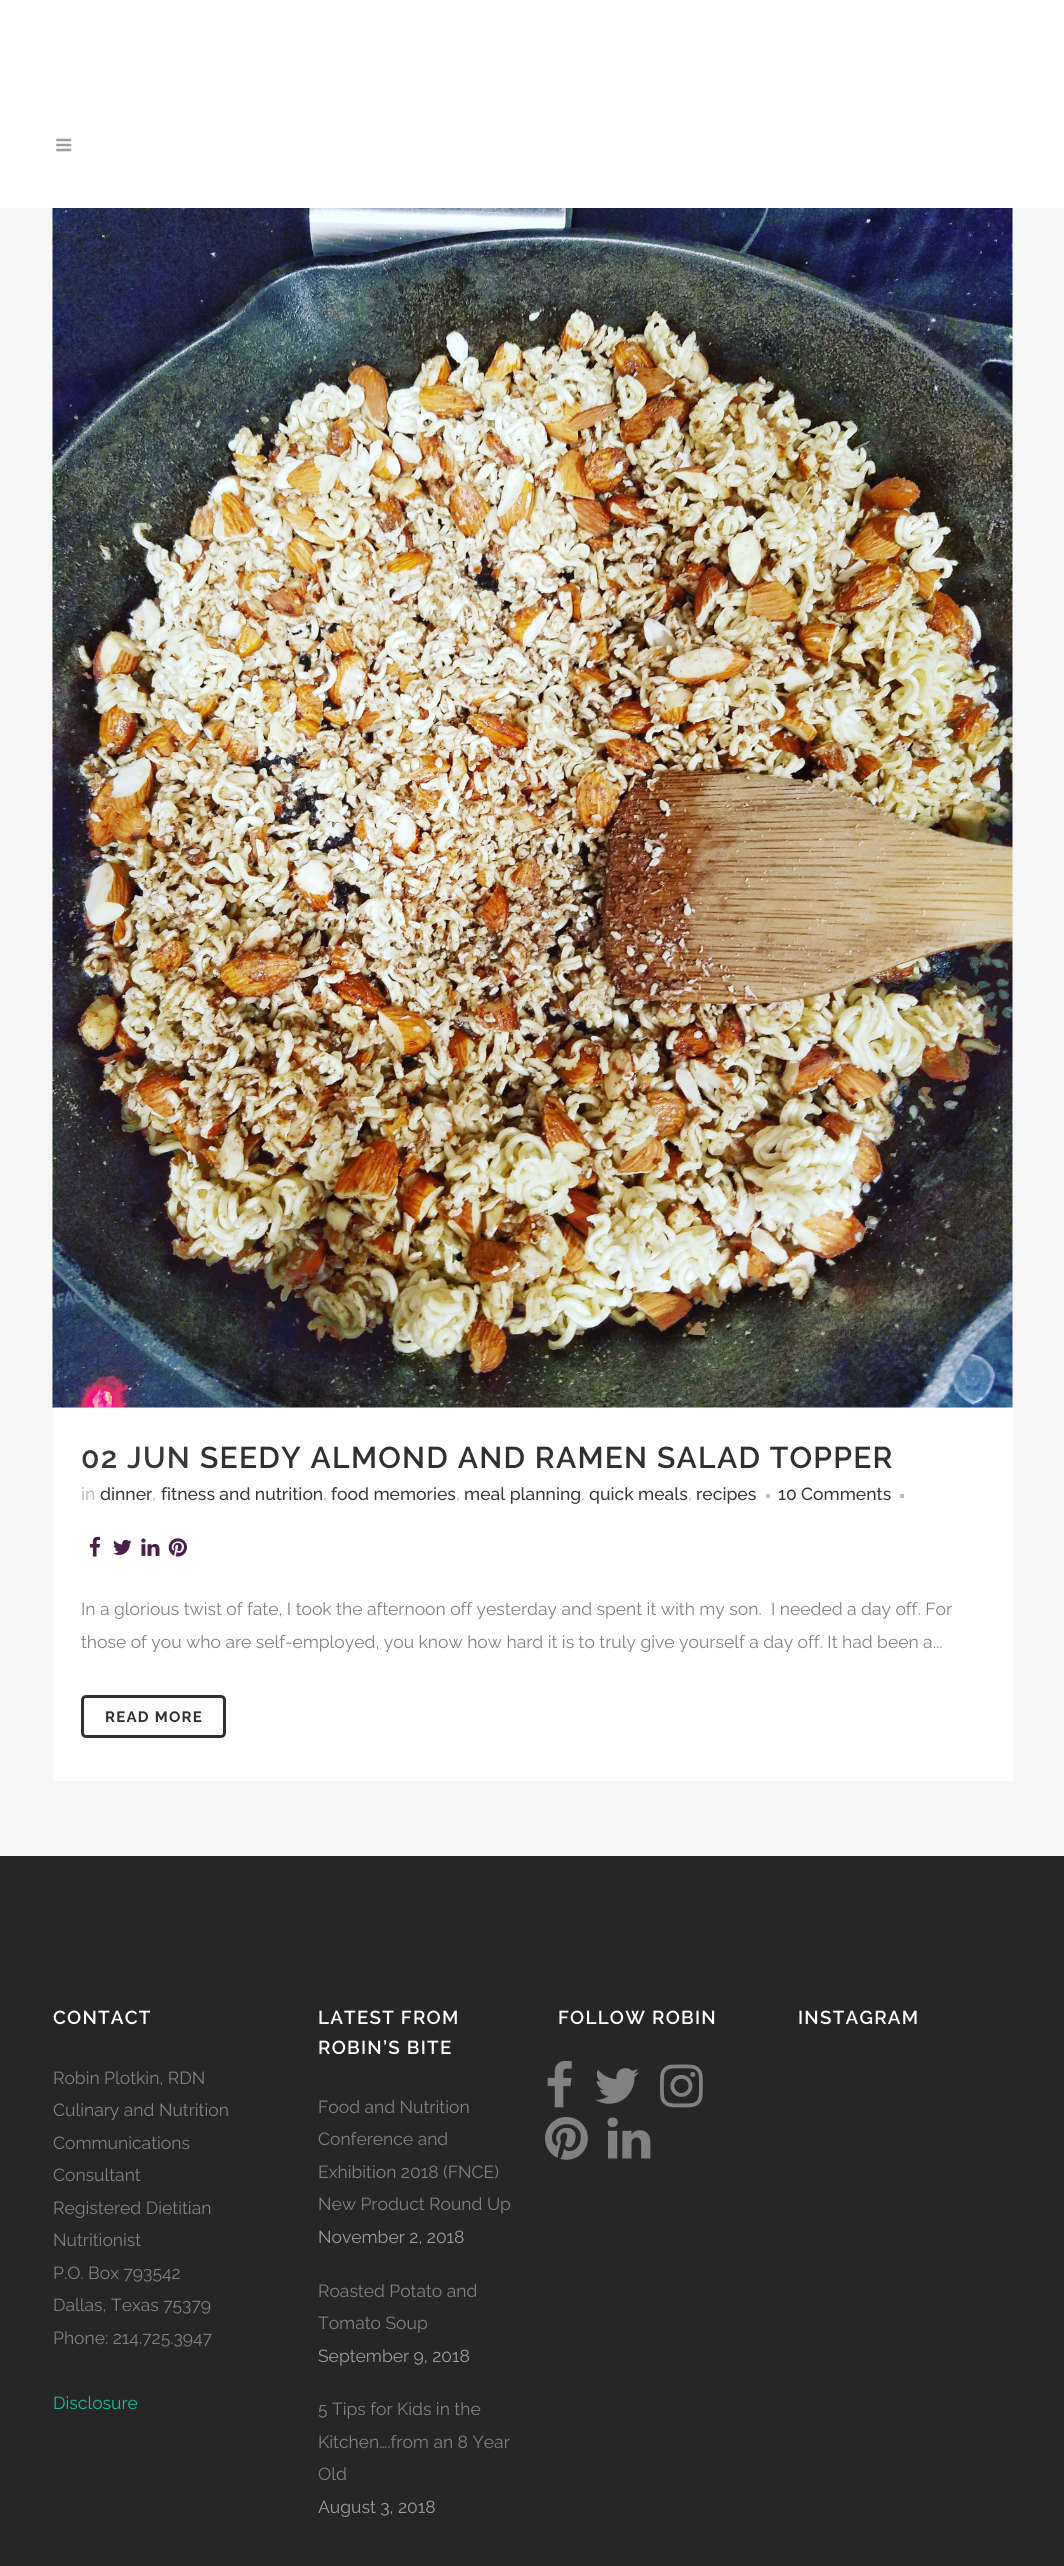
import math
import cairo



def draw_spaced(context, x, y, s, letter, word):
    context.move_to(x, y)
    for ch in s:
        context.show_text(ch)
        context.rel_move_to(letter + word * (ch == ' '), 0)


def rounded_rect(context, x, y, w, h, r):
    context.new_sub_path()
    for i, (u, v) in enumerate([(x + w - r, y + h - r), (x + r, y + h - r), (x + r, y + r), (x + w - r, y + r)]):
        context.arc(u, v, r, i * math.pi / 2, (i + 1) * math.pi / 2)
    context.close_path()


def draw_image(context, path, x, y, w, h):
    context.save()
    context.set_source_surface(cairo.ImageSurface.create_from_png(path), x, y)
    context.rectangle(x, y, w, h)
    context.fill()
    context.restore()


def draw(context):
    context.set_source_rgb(246 / 255, 246 / 255, 246 / 255)
    context.paint()
    context.set_source_rgb(1, 1, 1)
    context.rectangle(0, 0, 1064, 208)
    context.fill()
    draw_image(context, "images/1.png", 56, 138, 16, 14)
    draw_image(context, "images/2.png", 52, 208, 961, 1200)
    context.rectangle(53, 1408, 960, 373)
    context.fill()
    context.set_source_rgb(190 / 255, 190 / 255, 190 / 255)
    context.rectangle(766, 1494, 4, 4)
    context.fill()
    context.rectangle(900, 1494, 4, 4)
    context.fill()
    draw_image(context, "images/3.png", 89, 1536, 12, 21)
    draw_image(context, "images/4.png", 113, 1539, 19, 16)
    draw_image(context, "images/5.png", 141, 1538, 19, 18)
    draw_image(context, "images/6.png", 168, 1538, 19, 19)
    rounded_rect(context, 82.5, 1696.5, 142, 40, 3.5)
    context.set_source_rgb(48 / 255, 48 / 255, 48 / 255)
    context.set_line_width(3)
    context.stroke()
    context.set_source_rgb(38 / 255, 38 / 255, 38 / 255)
    context.rectangle(0, 1856, 1064, 710)
    context.fill()
    draw_image(context, "images/7.png", 547, 2060, 25, 48)
    draw_image(context, "images/8.png", 595, 2068, 44, 36)
    draw_image(context, "images/9.png", 660, 2064, 43, 44)
    draw_image(context, "images/10.png", 545, 2117, 43, 43)
    draw_image(context, "images/11.png", 607, 2117, 44, 42)
    context.select_font_face("Raleway SemiBold")
    context.set_font_size(30)
    context.set_source_rgb(56 / 255, 56 / 255, 56 / 255)
    draw_spaced(context, 81, 1468, "02 JUN", 1.25, 0)
    context.set_source_rgb(48 / 255, 48 / 255, 48 / 255)
    draw_spaced(context, 200, 1468, "SEEDY ALMOND AND RAMEN SALAD TOPPER", 1.25, 0)
    context.select_font_face("Raleway Medium")
    context.set_font_size(17.5)
    context.set_source_rgb(190 / 255, 190 / 255, 190 / 255)
    context.move_to(81, 1500)
    context.show_text("in")
    context.set_source_rgb(56 / 255, 56 / 255, 56 / 255)
    context.move_to(100, 1500)
    context.show_text("dinner")
    context.move_to(161, 1500)
    context.show_text("fitness and nutrition")
    context.move_to(331, 1500)
    context.show_text("food memories")
    context.move_to(464, 1500)
    context.show_text("meal planning")
    context.move_to(589, 1500)
    context.show_text("quick meals")
    context.move_to(696, 1500)
    context.show_text("recipes")
    context.move_to(778, 1500)
    context.show_text("10 Comments")
    context.set_source_rgb(190 / 255, 190 / 255, 190 / 255)
    context.move_to(152, 1500)
    context.show_text(",")
    context.move_to(323, 1500)
    context.show_text(",")
    context.move_to(456, 1500)
    context.show_text(",")
    context.move_to(581, 1500)
    context.show_text(",")
    context.move_to(688, 1500)
    context.show_text(",")
    context.select_font_face("Raleway")
    context.set_source_rgb(129 / 255, 129 / 255, 129 / 255)
    context.move_to(81, 1615)
    context.show_text("In a glorious twist of fate, I took the afternoon off yesterday and spent it with my son.")
    context.move_to(771, 1615)
    context.show_text("I needed a day off. For")
    context.move_to(81, 1648)
    context.show_text("those of you who are self-employed, you know how hard it is to truly give yourself a day off. It had been a...")
    context.select_font_face("Raleway", cairo.FontSlant.NORMAL, cairo.FontWeight.BOLD)
    context.set_font_size(15)
    context.set_source_rgb(48 / 255, 48 / 255, 48 / 255)
    draw_spaced(context, 105, 1722, "READ MORE", 1.25, 0)
    context.select_font_face("Raleway SemiBold")
    context.set_font_size(18.75)
    context.set_source_rgb(1, 1, 1)
    draw_spaced(context, 53, 2024, "CONTACT", 1.25, 0)
    context.select_font_face("Raleway")
    context.set_font_size(17.5)
    context.set_source_rgb(129 / 255, 129 / 255, 129 / 255)
    context.move_to(53, 2084)
    context.show_text("Robin Plotkin, RDN")
    context.move_to(53, 2116)
    context.show_text("Culinary and Nutrition")
    context.move_to(53, 2149)
    context.show_text("Communications")
    context.move_to(53, 2181)
    context.show_text("Consultant")
    context.move_to(53, 2214)
    context.show_text("Registered Dietitian")
    context.move_to(53, 2246)
    context.show_text("Nutritionist")
    context.move_to(53, 2279)
    context.show_text("P.O. Box 793542")
    context.move_to(53, 2311)
    context.show_text("Dallas, Texas 75379")
    context.move_to(53, 2344)
    context.show_text("Phone: 214.725.3947")
    context.set_source_rgb(26 / 255, 188 / 255, 156 / 255)
    context.move_to(53, 2409)
    context.show_text("Disclosure")
    context.select_font_face("Raleway SemiBold")
    context.set_font_size(18.75)
    context.set_source_rgb(1, 1, 1)
    draw_spaced(context, 318, 2024, "LATEST FROM", 1.25, 0)
    draw_spaced(context, 318, 2054, "ROBIN’S BITE", 1.25, 0)
    context.select_font_face("Raleway")
    context.set_font_size(17.5)
    context.set_source_rgb(129 / 255, 129 / 255, 129 / 255)
    context.move_to(318, 2113)
    context.show_text("Food and Nutrition")
    context.move_to(318, 2145)
    context.show_text("Conference and")
    context.move_to(318, 2178)
    context.show_text("Exhibition 2018 (FNCE)")
    context.move_to(318, 2210)
    context.show_text("New Product Round Up")
    context.set_source_rgb(157 / 255, 157 / 255, 157 / 255)
    context.move_to(318, 2243)
    context.show_text("November 2, 2018")
    context.set_source_rgb(129 / 255, 129 / 255, 129 / 255)
    context.move_to(318, 2297)
    context.show_text("Roasted Potato and")
    context.move_to(318, 2329)
    context.show_text("Tomato Soup")
    context.set_source_rgb(157 / 255, 157 / 255, 157 / 255)
    context.move_to(318, 2362)
    context.show_text("September 9, 2018")
    context.set_source_rgb(129 / 255, 129 / 255, 129 / 255)
    context.move_to(318, 2415)
    context.show_text("5 Tips for Kids in the")
    context.move_to(318, 2448)
    context.show_text("Kitchen….from an 8 Year")
    context.move_to(318, 2480)
    context.show_text("Old")
    context.set_source_rgb(157 / 255, 157 / 255, 157 / 255)
    context.move_to(318, 2513)
    context.show_text("August 3, 2018")
    context.select_font_face("Raleway SemiBold")
    context.set_font_size(18.75)
    context.set_source_rgb(1, 1, 1)
    draw_spaced(context, 558, 2024, "FOLLOW ROBIN", 1.25, 0)
    draw_spaced(context, 798, 2024, "INSTAGRAM", 1.25, 0)


surface = cairo.ImageSurface(cairo.Format.RGB24, 1064, 2566)
context = cairo.Context(surface)
options = cairo.FontOptions()
options.set_hint_metrics(cairo.HintMetrics.OFF)
options.set_hint_style(cairo.HintStyle.NONE)
context.set_font_options(options)
context.set_miter_limit(4)
draw(context)
surface.write_to_png("out.png")
